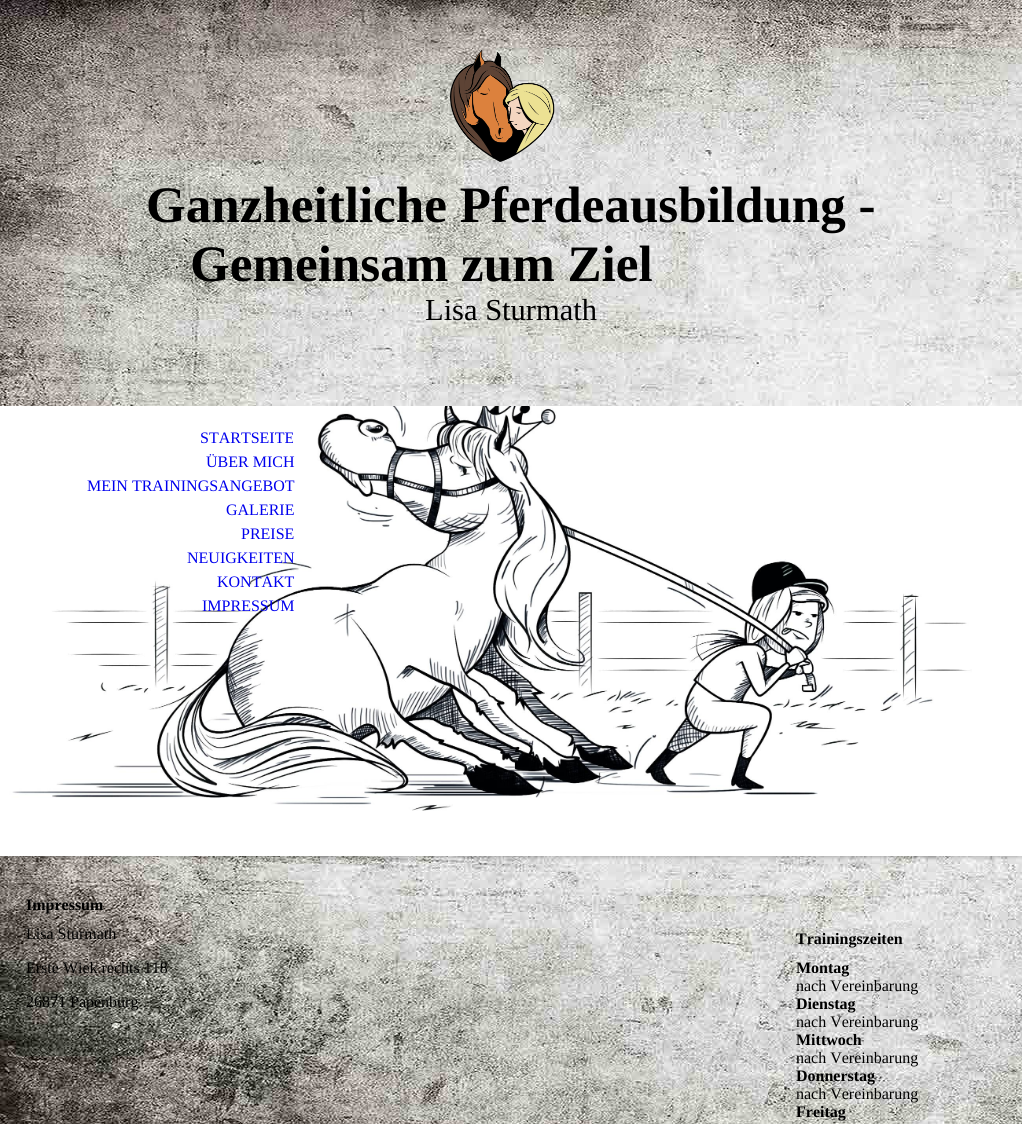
import math
import cairo



def rounded_rect(context, x, y, w, h, r):
    context.new_sub_path()
    for i, (u, v) in enumerate([(x + w - r, y + h - r), (x + r, y + h - r), (x + r, y + r), (x + w - r, y + r)]):
        context.arc(u, v, r, i * math.pi / 2, (i + 1) * math.pi / 2)
    context.close_path()


def draw_shadow(context, x, y, w, h, r, blur, alpha):
    context.push_group_with_content(cairo.Content.ALPHA)
    context.set_operator(cairo.Operator.SOURCE)
    for i in range(15, -16, -2):
        e = blur * i / 6
        if min(w, h) + 2 * e > 0:
            context.set_source_rgba(0, 0, 0, alpha * math.erfc((i - 1) / 8.5) / 2)
            rounded_rect(context, x - e, y - e, w + 2 * e, h + 2 * e, max(0, min(r + e + blur * .6, min(w, h) / 2 + e)))
            context.fill()
    context.mask(context.pop_group())


def draw_image(context, path, x, y, w, h):
    context.save()
    context.set_source_surface(cairo.ImageSurface.create_from_png(path), x, y)
    context.rectangle(x, y, w, h)
    context.fill()
    context.restore()


def draw(context):
    context.set_source_rgb(1, 1, 1)
    context.paint()
    draw_image(context, "images/1.png", 0, 0, 1022, 1124)
    draw_image(context, "images/2.png", 0, 0, 1022, 10)
    draw_image(context, "images/3.png", 450, 50, 105, 112)
    context.set_source_rgb(0, 0, 0)
    draw_shadow(context, 5, 416, 1012, 440, 0, 2.5, 0.4)
    draw_image(context, "images/4.png", 0, 406, 1022, 450)
    context.select_font_face("Liberation Serif", cairo.FontSlant.NORMAL, cairo.FontWeight.BOLD)
    context.set_font_size(51.1)
    context.set_source_rgb(0, 0, 0)
    context.move_to(146, 222)
    context.show_text("Ganzheitliche Pferdeausbildung -")
    context.move_to(190, 281)
    context.show_text("Gemeinsam zum Ziel")
    context.select_font_face("Liberation Serif")
    context.set_font_size(30.5)
    context.move_to(425, 320)
    context.show_text("Lisa Sturmath")
    context.set_font_size(16)
    context.set_source_rgb(0, 0, 238 / 255)
    context.move_to(200, 443)
    context.show_text("STARTSEITE")
    context.move_to(206, 467)
    context.show_text("ÜBER MICH")
    context.move_to(87, 491)
    context.show_text("MEIN TRAININGSANGEBOT")
    context.move_to(226, 515)
    context.show_text("GALERIE")
    context.move_to(241, 539)
    context.show_text("PREISE")
    context.move_to(187, 563)
    context.show_text("NEUIGKEITEN")
    context.move_to(217, 587)
    context.show_text("KONTAKT")
    context.move_to(202, 611)
    context.show_text("IMPRESSUM")
    context.select_font_face("Liberation Serif", cairo.FontSlant.NORMAL, cairo.FontWeight.BOLD)
    context.set_source_rgb(0, 0, 0)
    context.move_to(26, 910)
    context.show_text("Impressum")
    context.select_font_face("Liberation Serif")
    context.move_to(26, 939)
    context.show_text("Lisa Sturmath")
    context.move_to(26, 973)
    context.show_text("Erste Wiek rechts 118")
    context.move_to(26, 1007)
    context.show_text("26871 Papenburg")
    context.select_font_face("Liberation Serif", cairo.FontSlant.NORMAL, cairo.FontWeight.BOLD)
    context.move_to(796, 944)
    context.show_text("Trainingszeiten")
    context.move_to(796, 973)
    context.show_text("Montag")
    context.select_font_face("Liberation Serif")
    context.move_to(796, 991)
    context.show_text("nach Vereinbarung")
    context.select_font_face("Liberation Serif", cairo.FontSlant.NORMAL, cairo.FontWeight.BOLD)
    context.move_to(796, 1009)
    context.show_text("Dienstag")
    context.select_font_face("Liberation Serif")
    context.move_to(796, 1027)
    context.show_text("nach Vereinbarung")
    context.select_font_face("Liberation Serif", cairo.FontSlant.NORMAL, cairo.FontWeight.BOLD)
    context.move_to(796, 1045)
    context.show_text("Mittwoch")
    context.select_font_face("Liberation Serif")
    context.move_to(796, 1063)
    context.show_text("nach Vereinbarung")
    context.select_font_face("Liberation Serif", cairo.FontSlant.NORMAL, cairo.FontWeight.BOLD)
    context.move_to(796, 1081)
    context.show_text("Donnerstag")
    context.select_font_face("Liberation Serif")
    context.move_to(796, 1099)
    context.show_text("nach Vereinbarung")
    context.select_font_face("Liberation Serif", cairo.FontSlant.NORMAL, cairo.FontWeight.BOLD)
    context.move_to(796, 1117)
    context.show_text("Freitag")


surface = cairo.ImageSurface(cairo.Format.RGB24, 1022, 1124)
context = cairo.Context(surface)
options = cairo.FontOptions()
options.set_hint_metrics(cairo.HintMetrics.OFF)
options.set_hint_style(cairo.HintStyle.NONE)
context.set_font_options(options)
context.set_miter_limit(4)
draw(context)
surface.write_to_png("out.png")
